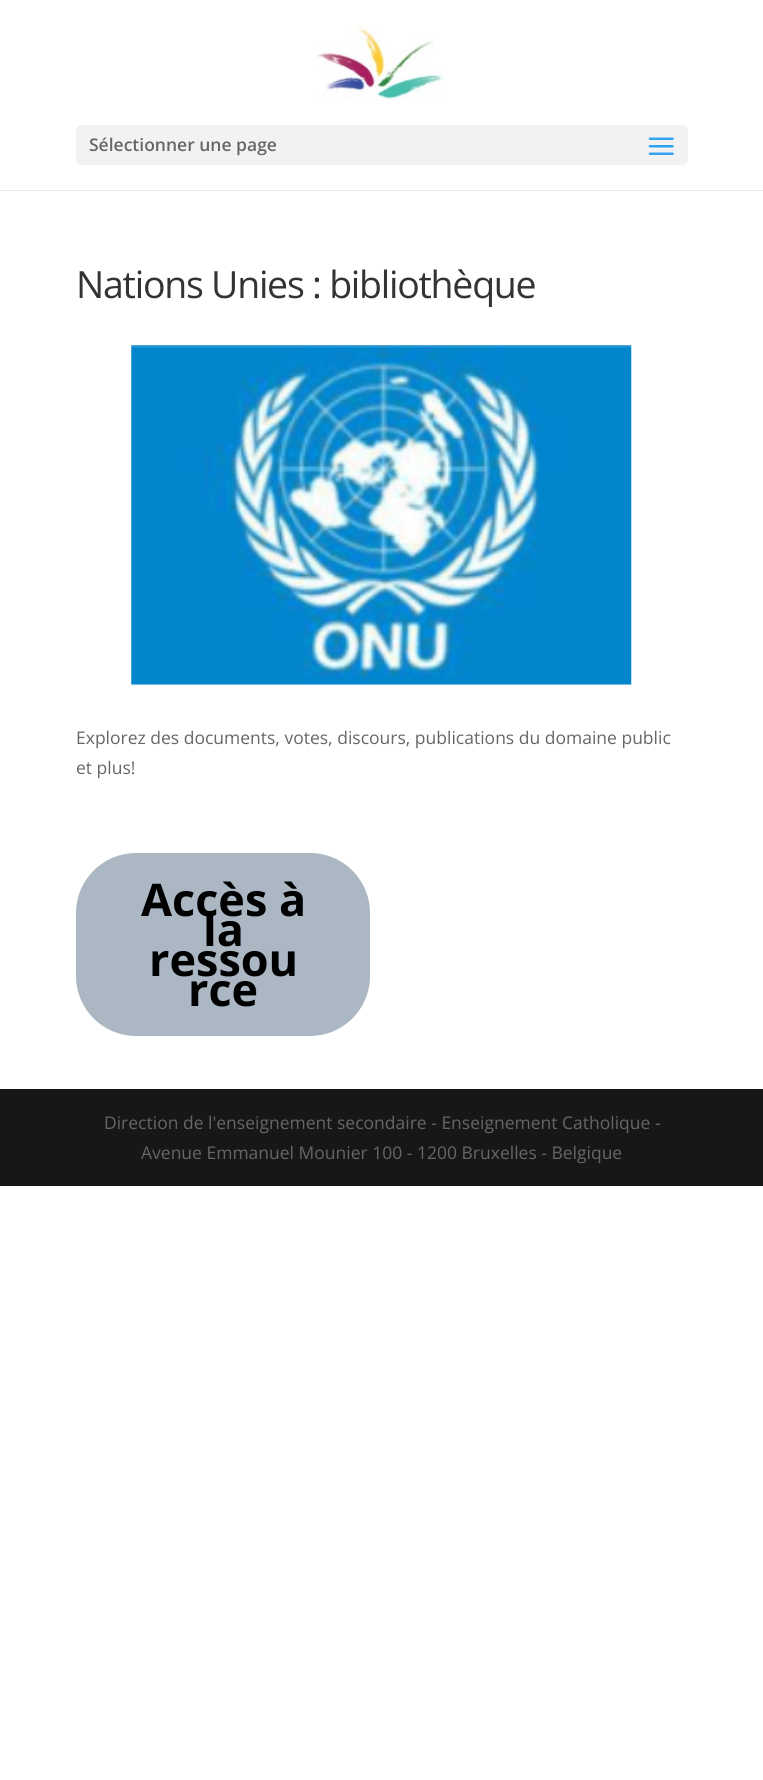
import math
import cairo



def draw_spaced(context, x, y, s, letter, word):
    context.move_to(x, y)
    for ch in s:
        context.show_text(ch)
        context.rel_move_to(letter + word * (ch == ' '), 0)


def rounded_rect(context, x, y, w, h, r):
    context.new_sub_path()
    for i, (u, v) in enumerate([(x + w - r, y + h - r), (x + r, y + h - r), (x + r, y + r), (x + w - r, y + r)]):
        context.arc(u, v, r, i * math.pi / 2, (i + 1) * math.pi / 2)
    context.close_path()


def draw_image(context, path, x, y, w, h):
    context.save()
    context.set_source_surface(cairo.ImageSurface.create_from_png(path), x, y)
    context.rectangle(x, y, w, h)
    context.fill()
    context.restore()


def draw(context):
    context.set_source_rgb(1, 1, 1)
    context.paint()
    context.set_source_rgb(230 / 255, 230 / 255, 230 / 255)
    context.new_path()
    context.move_to(0, 190)
    context.line_to(0, 191)
    context.line_to(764, 191)
    context.line_to(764, 1)
    context.line_to(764, 190)
    context.close_path()
    context.fill()
    draw_image(context, "images/1.png", 315, 25, 131, 75)
    context.set_source_rgb(242 / 255, 242 / 255, 242 / 255)
    rounded_rect(context, 76, 125, 612, 40, 6)
    context.fill()
    draw_image(context, "images/2.png", 648, 137, 26, 18)
    draw_image(context, "images/3.png", 131, 345, 501, 341)
    context.set_source_rgb(171 / 255, 184 / 255, 195 / 255)
    rounded_rect(context, 76, 853, 294, 183, 60)
    context.fill()
    context.set_source_rgb(23 / 255, 23 / 255, 23 / 255)
    context.rectangle(0, 1089, 763, 97)
    context.fill()
    context.select_font_face("Open Sans SemiBold")
    context.set_font_size(17.5)
    context.set_source_rgb(102 / 255, 102 / 255, 102 / 255)
    context.move_to(89, 151)
    context.show_text("Sélectionner une page")
    context.select_font_face("Open Sans")
    context.set_font_size(37.5)
    context.set_source_rgb(51 / 255, 51 / 255, 51 / 255)
    draw_spaced(context, 76, 298, "Nations Unies : bibliothèque", -1.25, 0)
    context.set_font_size(17.5)
    context.set_source_rgb(102 / 255, 102 / 255, 102 / 255)
    context.move_to(76, 744)
    context.show_text("Explorez des documents, votes, discours, publications du domaine public")
    context.move_to(76, 774)
    context.show_text("et plus!")
    context.select_font_face("Open Sans", cairo.FontSlant.NORMAL, cairo.FontWeight.BOLD)
    context.set_font_size(45)
    context.set_source_rgb(0, 0, 0)
    context.move_to(141, 916)
    context.show_text("Accès à")
    context.move_to(203, 946)
    context.show_text("la")
    context.move_to(149, 976)
    context.show_text("ressou")
    context.move_to(188, 1006)
    context.show_text("rce")
    context.select_font_face("Open Sans")
    context.set_font_size(17.5)
    context.set_source_rgb(102 / 255, 102 / 255, 102 / 255)
    context.move_to(104, 1129)
    context.show_text("Direction de l'enseignement secondaire - Enseignement Catholique -")
    context.move_to(141, 1159)
    context.show_text("Avenue Emmanuel Mounier 100 - 1200 Bruxelles - Belgique")


surface = cairo.ImageSurface(cairo.Format.RGB24, 763, 1780)
context = cairo.Context(surface)
options = cairo.FontOptions()
options.set_hint_metrics(cairo.HintMetrics.OFF)
options.set_hint_style(cairo.HintStyle.NONE)
context.set_font_options(options)
context.set_miter_limit(4)
draw(context)
surface.write_to_png("out.png")
